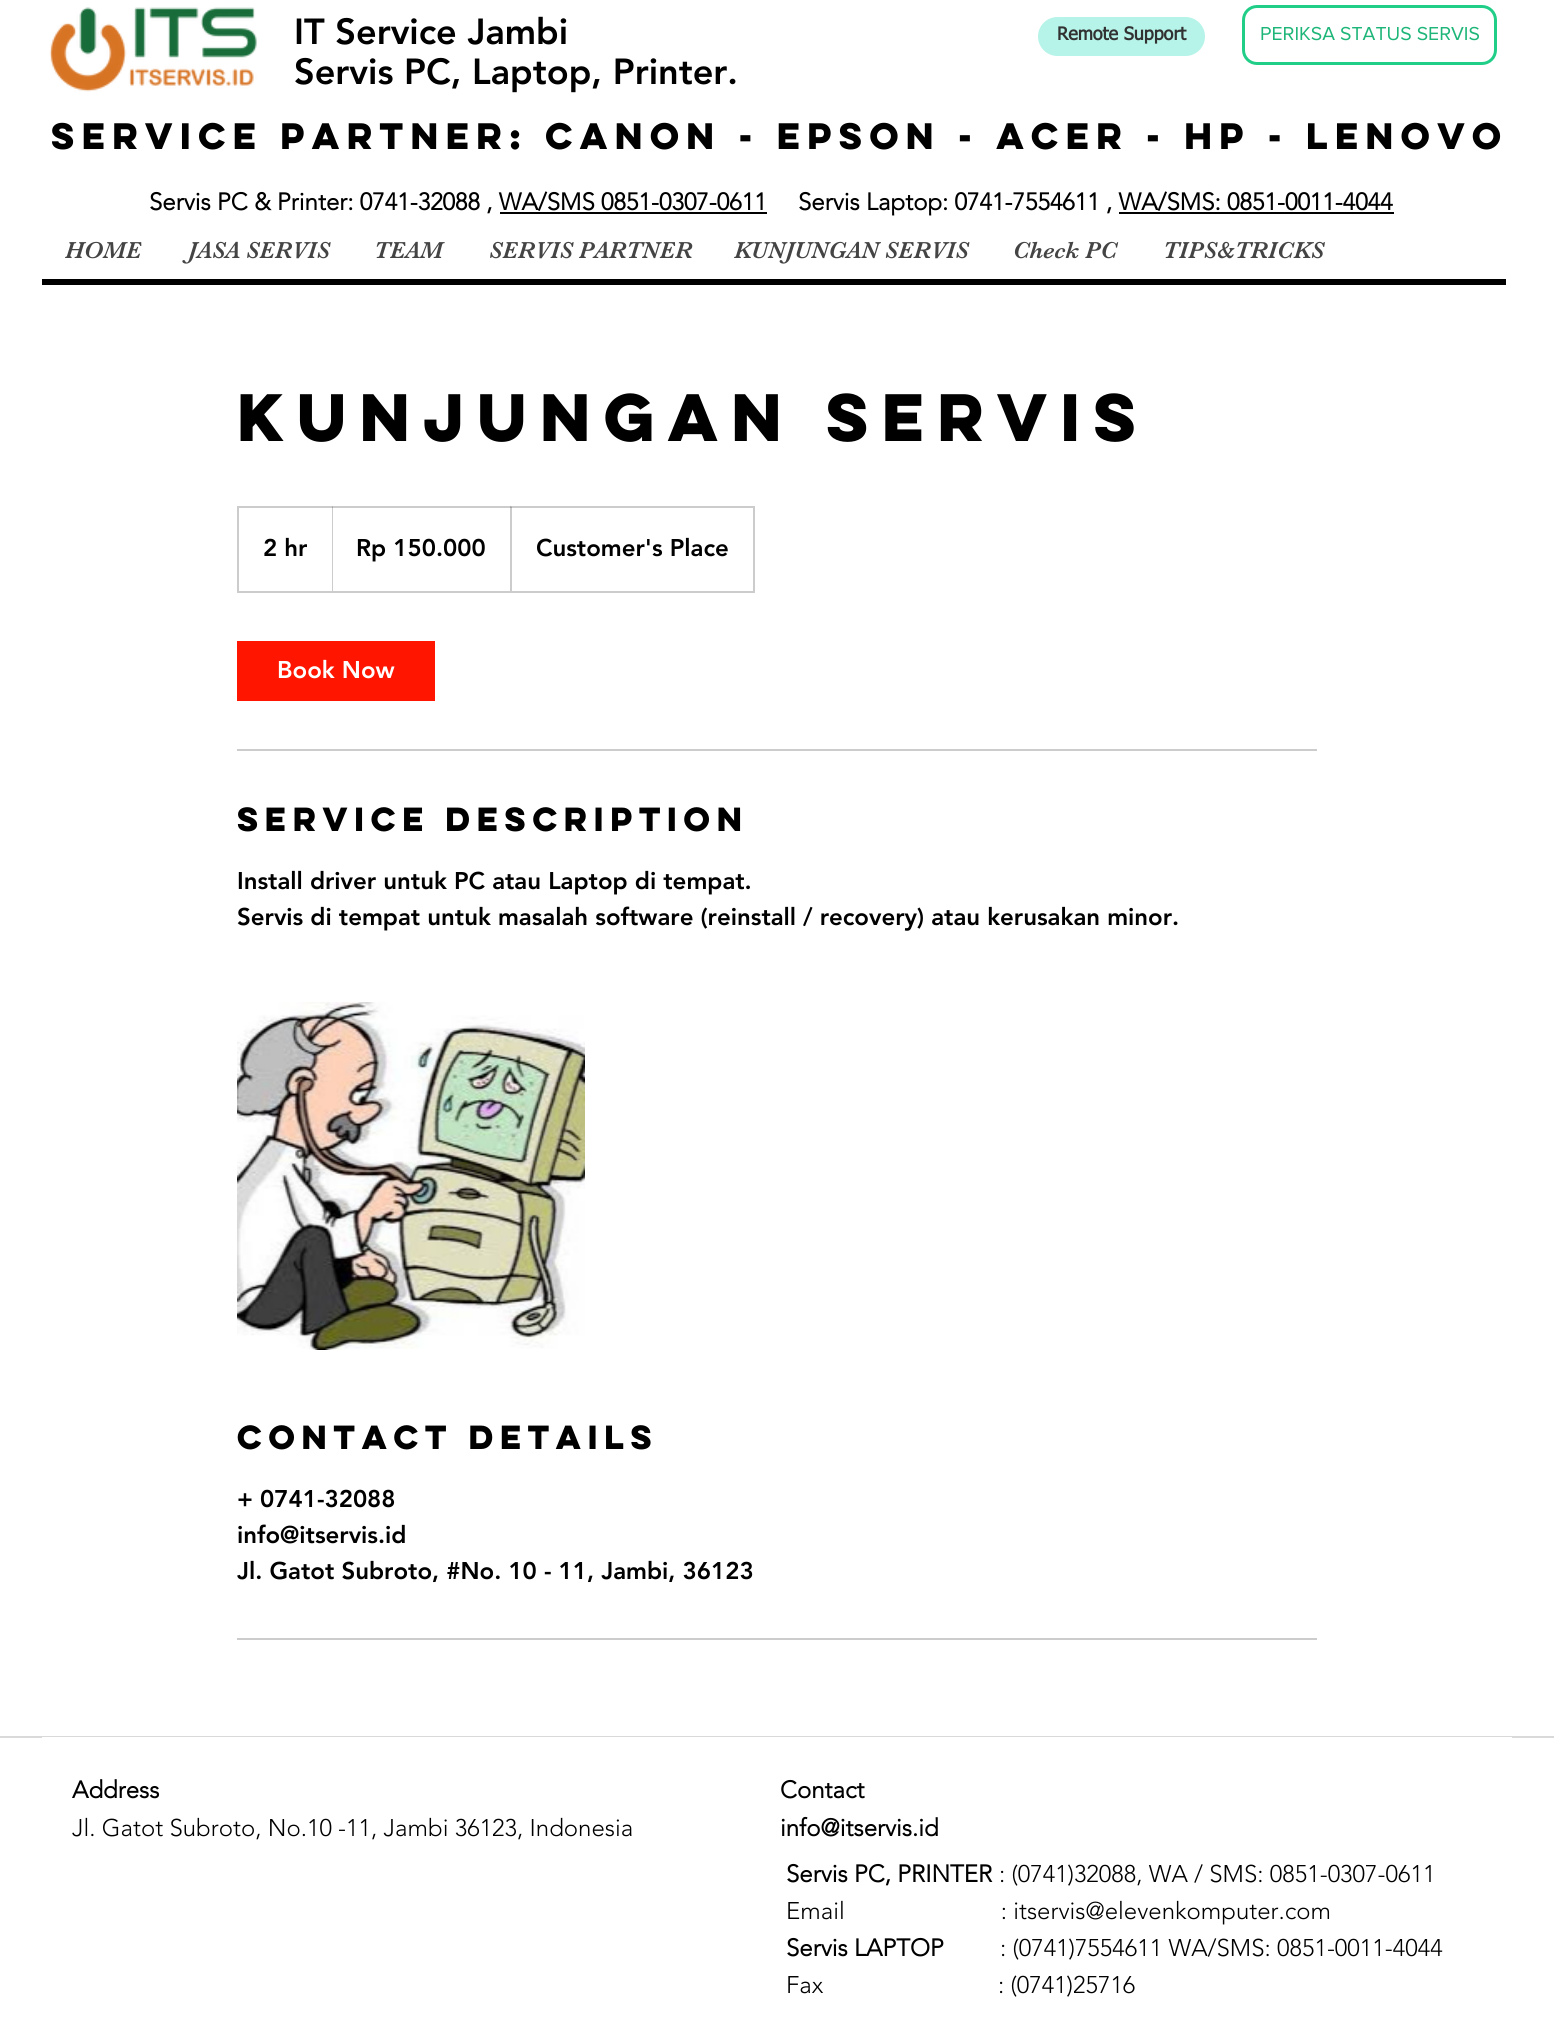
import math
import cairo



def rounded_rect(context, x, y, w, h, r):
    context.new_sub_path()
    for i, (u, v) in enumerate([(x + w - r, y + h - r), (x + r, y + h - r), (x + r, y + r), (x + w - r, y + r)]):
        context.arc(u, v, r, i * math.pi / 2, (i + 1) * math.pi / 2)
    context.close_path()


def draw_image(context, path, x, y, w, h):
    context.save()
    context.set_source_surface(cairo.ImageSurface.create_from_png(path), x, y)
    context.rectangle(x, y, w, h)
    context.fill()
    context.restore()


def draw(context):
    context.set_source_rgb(1, 1, 1)
    context.paint()
    draw_image(context, "images/1.png", 49, 7, 208, 85)
    context.set_source_rgb(182 / 255, 243 / 255, 232 / 255)
    rounded_rect(context, 1038, 17, 167, 39, 19.5)
    context.fill()
    rounded_rect(context, 1243.5, 6.5, 252, 57, 13.5)
    context.set_source_rgb(32 / 255, 206 / 255, 136 / 255)
    context.set_line_width(3)
    context.stroke()
    context.set_source_rgb(0, 0, 0)
    context.rectangle(500, 212, 267, 2)
    context.fill()
    context.rectangle(1119, 212, 275, 2)
    context.fill()
    context.rectangle(42, 279, 1464, 6)
    context.fill()
    context.rectangle(238, 507, 516, 85)
    context.set_source_rgb(204 / 255, 204 / 255, 204 / 255)
    context.set_line_width(2)
    context.stroke()
    context.set_source_rgba(0, 0, 0, 0.2)
    context.new_path()
    context.move_to(332, 591)
    context.line_to(332, 506)
    context.line_to(333, 507)
    context.line_to(333, 591)
    context.close_path()
    context.fill()
    context.new_path()
    context.move_to(510, 591)
    context.line_to(510, 506)
    context.line_to(512, 507)
    context.line_to(512, 591)
    context.close_path()
    context.fill()
    context.set_source_rgb(1, 21 / 255, 0)
    context.rectangle(237, 641, 198, 60)
    context.fill()
    context.set_source_rgb(204 / 255, 204 / 255, 204 / 255)
    context.rectangle(237, 749, 1080, 2)
    context.fill()
    draw_image(context, "images/2.png", 237, 1002, 348, 348)
    context.rectangle(237, 1638, 1080, 2)
    context.fill()
    context.set_source_rgb(217 / 255, 217 / 255, 217 / 255)
    context.rectangle(0, 1736, 1554, 2)
    context.fill()
    context.set_source_rgb(1, 1, 1)
    context.rectangle(42, 1737, 1470, 1)
    context.fill()
    context.select_font_face("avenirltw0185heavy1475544 Black")
    context.set_font_size(36)
    context.set_source_rgb(0, 0, 0)
    context.move_to(294, 44)
    context.show_text("IT Service Jambi")
    context.select_font_face("tahoma", cairo.FontSlant.NORMAL, cairo.FontWeight.BOLD)
    context.set_font_size(18)
    context.set_source_rgb(50 / 255, 50 / 255, 50 / 255)
    context.move_to(1057, 40)
    context.show_text("Remote Support")
    context.select_font_face("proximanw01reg")
    context.set_font_size(19.5)
    context.set_source_rgb(29 / 255, 181 / 255, 120 / 255)
    context.move_to(1260, 40)
    context.show_text("PERIKSA STATUS SERVIS")
    context.select_font_face("avenirltw0185heavy1475544 Black")
    context.set_font_size(36)
    context.set_source_rgb(0, 0, 0)
    context.move_to(294, 84)
    context.show_text("Servis PC, Laptop, Printer.")
    context.select_font_face("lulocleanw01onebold", cairo.FontSlant.NORMAL, cairo.FontWeight.BOLD)
    context.set_font_size(33)
    context.move_to(51, 149)
    context.show_text("SERVICE PARTNER: CANON - EPSON - ACER - HP - LENOVO")
    context.select_font_face("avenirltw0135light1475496", cairo.FontSlant.NORMAL, cairo.FontWeight.BOLD)
    context.set_font_size(24)
    context.move_to(149, 210)
    context.show_text("Servis PC & Printer: 0741-32088 , WA/SMS 0851-0307-0611")
    context.move_to(798, 210)
    context.show_text("Servis Laptop: 0741-7554611 , WA/SMS: 0851-0011-4044")
    context.select_font_face("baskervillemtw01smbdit")
    context.set_source_rgb(68 / 255, 68 / 255, 68 / 255)
    context.move_to(65, 258)
    context.show_text("HOME")
    context.move_to(188, 258)
    context.show_text("JASA SERVIS")
    context.move_to(374, 258)
    context.show_text("TEAM")
    context.move_to(489, 258)
    context.show_text("SERVIS PARTNER")
    context.move_to(734, 258)
    context.show_text("KUNJUNGAN SERVIS")
    context.move_to(1013, 258)
    context.show_text("Check PC")
    context.move_to(1163, 258)
    context.show_text("TIPS&TRICKS")
    context.select_font_face("lulocleanw01onebold", cairo.FontSlant.NORMAL, cairo.FontWeight.BOLD)
    context.set_font_size(60)
    context.set_source_rgb(0, 0, 0)
    context.move_to(237, 441)
    context.show_text("Kunjungan Servis")
    context.select_font_face("avenirltw0185heavy1475544 Black")
    context.set_font_size(24)
    context.move_to(263, 556)
    context.show_text("2 hr")
    context.move_to(356, 556)
    context.show_text("Rp 150.000")
    context.move_to(536, 556)
    context.show_text("Customer's Place")
    context.set_source_rgb(1, 1, 1)
    context.move_to(277, 678)
    context.show_text("Book Now")
    context.select_font_face("lulocleanw01onebold", cairo.FontSlant.NORMAL, cairo.FontWeight.BOLD)
    context.set_font_size(30)
    context.set_source_rgb(0, 0, 0)
    context.move_to(237, 831)
    context.show_text("Service Description")
    context.select_font_face("avenirltw0185heavy1475544 Black")
    context.set_font_size(24)
    context.move_to(237, 889)
    context.show_text("Install driver untuk PC atau Laptop di tempat.")
    context.move_to(237, 925)
    context.show_text("Servis di tempat untuk masalah software (reinstall / recovery) atau kerusakan minor.")
    context.select_font_face("lulocleanw01onebold", cairo.FontSlant.NORMAL, cairo.FontWeight.BOLD)
    context.set_font_size(30)
    context.move_to(237, 1449)
    context.show_text("Contact Details")
    context.select_font_face("avenirltw0185heavy1475544 Black")
    context.set_font_size(24)
    context.move_to(237, 1507)
    context.show_text("+ 0741-32088")
    context.move_to(237, 1543)
    context.show_text("info@itservis.id")
    context.move_to(237, 1579)
    context.show_text("Jl. Gatot Subroto, #No. 10 - 11, Jambi, 36123")
    context.select_font_face("avenirltw0135light1475496", cairo.FontSlant.NORMAL, cairo.FontWeight.BOLD)
    context.move_to(72, 1798)
    context.show_text("Address")
    context.move_to(780, 1798)
    context.show_text("Contact")
    context.select_font_face("avenirltw0135light1475496 Light")
    context.move_to(72, 1836)
    context.show_text("Jl. Gatot Subroto, No.10 -11, Jambi 36123, Indonesia")
    context.select_font_face("avenirltw0135light1475496", cairo.FontSlant.NORMAL, cairo.FontWeight.BOLD)
    context.move_to(780, 1836)
    context.show_text("info@itservis.id")
    context.move_to(786, 1882)
    context.show_text("Servis PC, PRINTER")
    context.select_font_face("avenirltw0135light1475496 Light")
    context.move_to(999, 1882)
    context.show_text(": (0741)32088, WA / SMS: 0851-0307-0611")
    context.move_to(786, 1919)
    context.show_text("Email                         : itservis@elevenkomputer.com")
    context.select_font_face("avenirltw0135light1475496", cairo.FontSlant.NORMAL, cairo.FontWeight.BOLD)
    context.move_to(786, 1956)
    context.show_text("Servis LAPTOP")
    context.select_font_face("avenirltw0135light1475496 Light")
    context.move_to(1000, 1956)
    context.show_text(": (0741)7554611 WA/SMS: 0851-0011-4044")
    context.move_to(786, 1993)
    context.show_text("Fax                            : (0741)25716")


surface = cairo.ImageSurface(cairo.Format.RGB24, 1554, 2024)
context = cairo.Context(surface)
options = cairo.FontOptions()
options.set_hint_metrics(cairo.HintMetrics.OFF)
options.set_hint_style(cairo.HintStyle.NONE)
context.set_font_options(options)
context.set_miter_limit(4)
draw(context)
surface.write_to_png("out.png")
